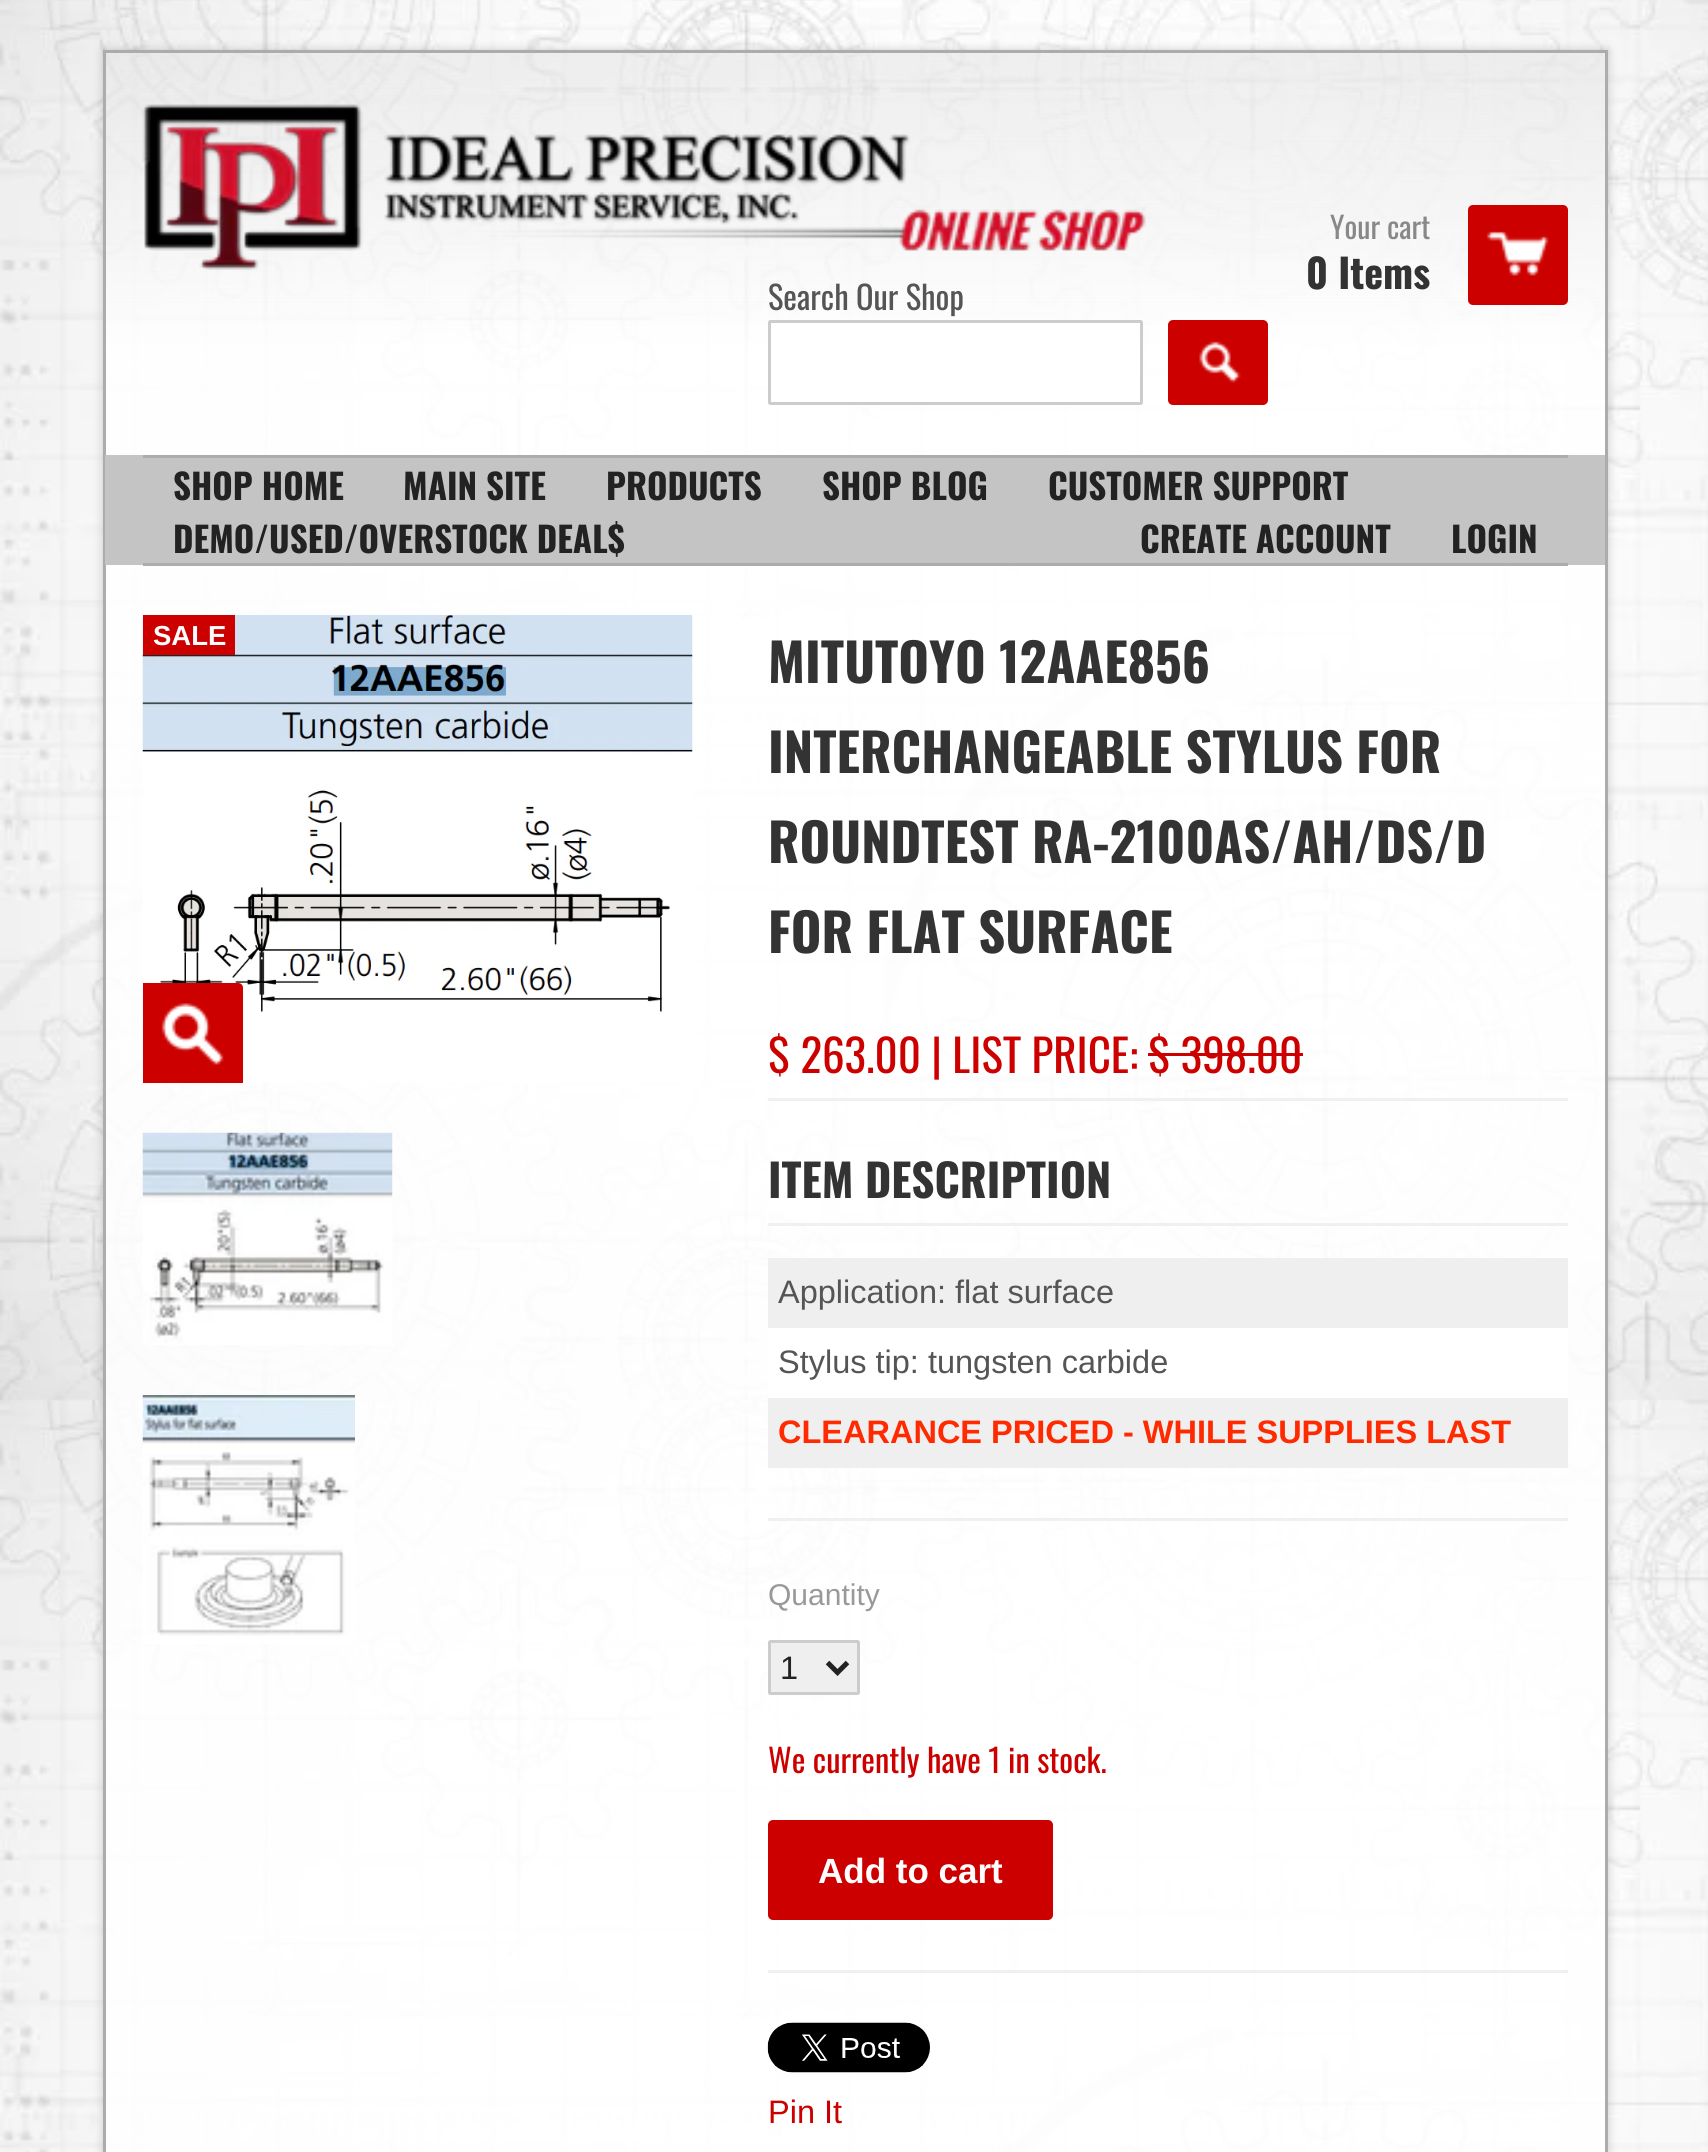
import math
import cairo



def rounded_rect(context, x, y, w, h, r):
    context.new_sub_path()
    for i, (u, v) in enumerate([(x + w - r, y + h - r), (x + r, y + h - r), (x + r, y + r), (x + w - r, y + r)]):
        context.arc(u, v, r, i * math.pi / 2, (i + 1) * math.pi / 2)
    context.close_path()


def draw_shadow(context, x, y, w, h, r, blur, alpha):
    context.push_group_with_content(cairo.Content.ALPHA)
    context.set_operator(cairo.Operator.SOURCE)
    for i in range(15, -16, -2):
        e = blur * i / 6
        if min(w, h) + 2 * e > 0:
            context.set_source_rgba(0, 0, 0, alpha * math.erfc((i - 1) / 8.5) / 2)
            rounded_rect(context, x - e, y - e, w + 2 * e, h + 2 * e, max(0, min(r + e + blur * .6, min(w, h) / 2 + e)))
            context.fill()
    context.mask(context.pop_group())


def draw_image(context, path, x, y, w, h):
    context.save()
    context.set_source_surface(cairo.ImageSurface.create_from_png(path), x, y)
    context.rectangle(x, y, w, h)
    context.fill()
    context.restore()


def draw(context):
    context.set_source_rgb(1, 1, 1)
    context.paint()
    draw_image(context, "images/1.png", 0, 0, 1708, 50)
    draw_image(context, "images/2.png", 0, 50, 1708, 2102)
    context.save()
    context.set_fill_rule(cairo.FillRule.EVEN_ODD)
    context.new_path()
    context.move_to(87, 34)
    context.line_to(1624, 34)
    context.line_to(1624, 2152)
    context.line_to(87, 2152)
    context.close_path()
    context.move_to(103, 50)
    context.line_to(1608, 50)
    context.line_to(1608, 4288)
    context.line_to(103, 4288)
    context.close_path()
    context.clip()
    context.set_source_rgb(0, 0, 0)
    draw_shadow(context, 103, 50, 1505, 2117, 0, 5, 0.2)
    context.restore()
    gradient = cairo.LinearGradient(855, 53, 855, 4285)
    gradient.add_color_stop_rgba(0, 229 / 255, 229 / 255, 229 / 255, 0.6)
    gradient.add_color_stop_rgba(0.07, 1, 1, 1, 0.86)
    context.set_source(gradient)
    context.rectangle(106, 53, 1499, 2099)
    context.fill()
    context.rectangle(104.5, 51.5, 1502, 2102)
    context.set_source_rgb(172 / 255, 172 / 255, 172 / 255)
    context.set_line_width(3)
    context.stroke()
    draw_image(context, "images/3.png", 142, 104, 1004, 166)
    context.set_source_rgb(205 / 255, 0, 0)
    rounded_rect(context, 1468, 205, 100, 100, 5)
    context.fill()
    draw_image(context, "images/4.png", 1486, 231, 63, 45)
    context.set_source_rgb(1, 1, 1)
    rounded_rect(context, 769.5, 321.5, 372, 82, 1)
    context.fill_preserve()
    context.set_source_rgb(204 / 255, 204 / 255, 204 / 255)
    context.stroke()
    context.set_source_rgb(205 / 255, 0, 0)
    rounded_rect(context, 1168, 320, 100, 85, 5)
    context.fill()
    draw_image(context, "images/5.png", 1199, 341, 42, 42)
    context.set_source_rgb(196 / 255, 196 / 255, 196 / 255)
    context.rectangle(105, 455, 1500, 110)
    context.fill()
    context.set_source_rgb(172 / 255, 172 / 255, 172 / 255)
    context.rectangle(143, 455, 1425, 3)
    context.fill()
    context.rectangle(143, 563, 1425, 3)
    context.fill()
    draw_image(context, "images/6.png", 142, 615, 551, 467)
    context.set_source_rgb(205 / 255, 0, 0)
    context.rectangle(143, 615, 92, 40)
    context.fill()
    context.new_path()
    context.move_to(143, 983)
    context.line_to(238, 983)
    context.curve_to(241, 983, 243, 985, 243, 988)
    context.line_to(243, 1083)
    context.line_to(143, 1083)
    context.close_path()
    context.fill()
    draw_image(context, "images/7.png", 161, 1003, 63, 62)
    draw_image(context, "images/8.png", 142, 1132, 251, 213)
    draw_image(context, "images/9.png", 142, 1395, 213, 249)
    context.set_source_rgb(240 / 255, 240 / 255, 240 / 255)
    context.rectangle(768, 1098, 800, 3)
    context.fill()
    context.set_source_rgb(205 / 255, 0, 0)
    context.rectangle(1148, 1053, 155, 3)
    context.fill()
    context.set_source_rgb(240 / 255, 240 / 255, 240 / 255)
    context.rectangle(768, 1518, 800, 3)
    context.fill()
    context.rectangle(768, 1223, 800, 3)
    context.fill()
    context.set_source_rgb(239 / 255, 239 / 255, 239 / 255)
    context.rectangle(768, 1258, 800, 70)
    context.fill()
    context.set_source_rgb(1, 1, 1)
    context.rectangle(768, 1328, 800, 70)
    context.fill()
    context.set_source_rgb(239 / 255, 239 / 255, 239 / 255)
    context.rectangle(768, 1398, 800, 70)
    context.fill()
    rounded_rect(context, 769.5, 1641.5, 89, 52, 1)
    context.fill_preserve()
    context.set_source_rgb(204 / 255, 204 / 255, 204 / 255)
    context.stroke()
    context.new_path()
    context.move_to(827.5, 1662.5)
    context.line_to(837.5, 1672.5)
    context.line_to(847.5, 1662.5)
    context.set_source_rgb(34 / 255, 34 / 255, 34 / 255)
    context.set_line_width(5)
    context.stroke()
    context.set_source_rgb(205 / 255, 0, 0)
    rounded_rect(context, 768, 1820, 285, 100, 5)
    context.fill()
    context.set_source_rgb(240 / 255, 240 / 255, 240 / 255)
    context.rectangle(768, 1970, 800, 3)
    context.fill()
    draw_image(context, "images/10.png", 767, 2022, 163, 51)
    context.select_font_face("Oswald")
    context.set_font_size(30)
    context.set_source_rgb(136 / 255, 136 / 255, 136 / 255)
    context.move_to(1330, 239)
    context.show_text("Your cart")
    context.select_font_face("Oswald", cairo.FontSlant.NORMAL, cairo.FontWeight.BOLD)
    context.set_font_size(40)
    context.set_source_rgb(51 / 255, 51 / 255, 51 / 255)
    context.move_to(1306, 289)
    context.show_text("0 Items")
    context.select_font_face("Oswald")
    context.set_font_size(32.5)
    context.set_source_rgb(85 / 255, 85 / 255, 85 / 255)
    context.move_to(768, 310)
    context.show_text("Search Our Shop")
    context.select_font_face("Oswald", cairo.FontSlant.NORMAL, cairo.FontWeight.BOLD)
    context.set_font_size(35)
    context.set_source_rgb(34 / 255, 34 / 255, 34 / 255)
    context.move_to(173, 500)
    context.show_text("SHOP HOME")
    context.move_to(403, 500)
    context.show_text("MAIN SITE")
    context.move_to(606, 500)
    context.show_text("PRODUCTS")
    context.move_to(822, 500)
    context.show_text("SHOP BLOG")
    context.move_to(1048, 500)
    context.show_text("CUSTOMER SUPPORT")
    context.move_to(173, 553)
    context.show_text("DEMO/USED/OVERSTOCK DEAL$")
    context.move_to(1140, 553)
    context.show_text("CREATE ACCOUNT")
    context.move_to(1451, 553)
    context.show_text("LOGIN")
    context.select_font_face("Liberation Sans", cairo.FontSlant.NORMAL, cairo.FontWeight.BOLD)
    context.set_font_size(27.5)
    context.set_source_rgb(1, 1, 1)
    context.move_to(153, 645)
    context.show_text("SALE")
    context.select_font_face("Oswald", cairo.FontSlant.NORMAL, cairo.FontWeight.BOLD)
    context.set_font_size(52.5)
    context.set_source_rgb(51 / 255, 51 / 255, 51 / 255)
    context.move_to(768, 683)
    context.show_text("MITUTOYO 12AAE856")
    context.move_to(768, 773)
    context.show_text("INTERCHANGEABLE STYLUS FOR")
    context.move_to(768, 863)
    context.show_text("ROUNDTEST RA-2100AS/AH/DS/D")
    context.move_to(768, 953)
    context.show_text("FOR FLAT SURFACE")
    context.select_font_face("Oswald")
    context.set_font_size(45)
    context.set_source_rgb(205 / 255, 0, 0)
    context.move_to(768, 1073)
    context.show_text("$ 263.00 | LIST PRICE: $ 398.00")
    context.select_font_face("Oswald", cairo.FontSlant.NORMAL, cairo.FontWeight.BOLD)
    context.set_source_rgb(51 / 255, 51 / 255, 51 / 255)
    context.move_to(768, 1198)
    context.show_text("ITEM DESCRIPTION")
    context.select_font_face("Liberation Sans")
    context.set_font_size(32.5)
    context.set_source_rgb(85 / 255, 85 / 255, 85 / 255)
    context.move_to(778, 1303)
    context.show_text("Application: flat surface")
    context.move_to(778, 1373)
    context.show_text("Stylus tip: tungsten carbide")
    context.select_font_face("Liberation Sans", cairo.FontSlant.NORMAL, cairo.FontWeight.BOLD)
    context.set_source_rgb(1, 42 / 255, 0)
    context.move_to(778, 1443)
    context.show_text("CLEARANCE PRICED - WHILE SUPPLIES LAST")
    context.select_font_face("Liberation Sans")
    context.set_font_size(30)
    context.set_source_rgb(153 / 255, 153 / 255, 153 / 255)
    context.move_to(768, 1605)
    context.show_text("Quantity")
    context.set_font_size(32.5)
    context.set_source_rgb(34 / 255, 34 / 255, 34 / 255)
    context.move_to(780, 1679)
    context.show_text("1")
    context.select_font_face("Oswald")
    context.set_source_rgb(205 / 255, 0, 0)
    context.move_to(768, 1773)
    context.show_text("We currently have 1 in stock.")
    context.select_font_face("Liberation Sans", cairo.FontSlant.NORMAL, cairo.FontWeight.BOLD)
    context.set_font_size(35)
    context.set_source_rgb(1, 1, 1)
    context.move_to(818, 1883)
    context.show_text("Add to cart")
    context.select_font_face("Liberation Sans")
    context.set_font_size(32.5)
    context.set_source_rgb(205 / 255, 0, 0)
    context.move_to(768, 2123)
    context.show_text("Pin It")


surface = cairo.ImageSurface(cairo.Format.RGB24, 1708, 2152)
context = cairo.Context(surface)
options = cairo.FontOptions()
options.set_hint_metrics(cairo.HintMetrics.OFF)
options.set_hint_style(cairo.HintStyle.NONE)
context.set_font_options(options)
context.set_miter_limit(4)
draw(context)
surface.write_to_png("out.png")
